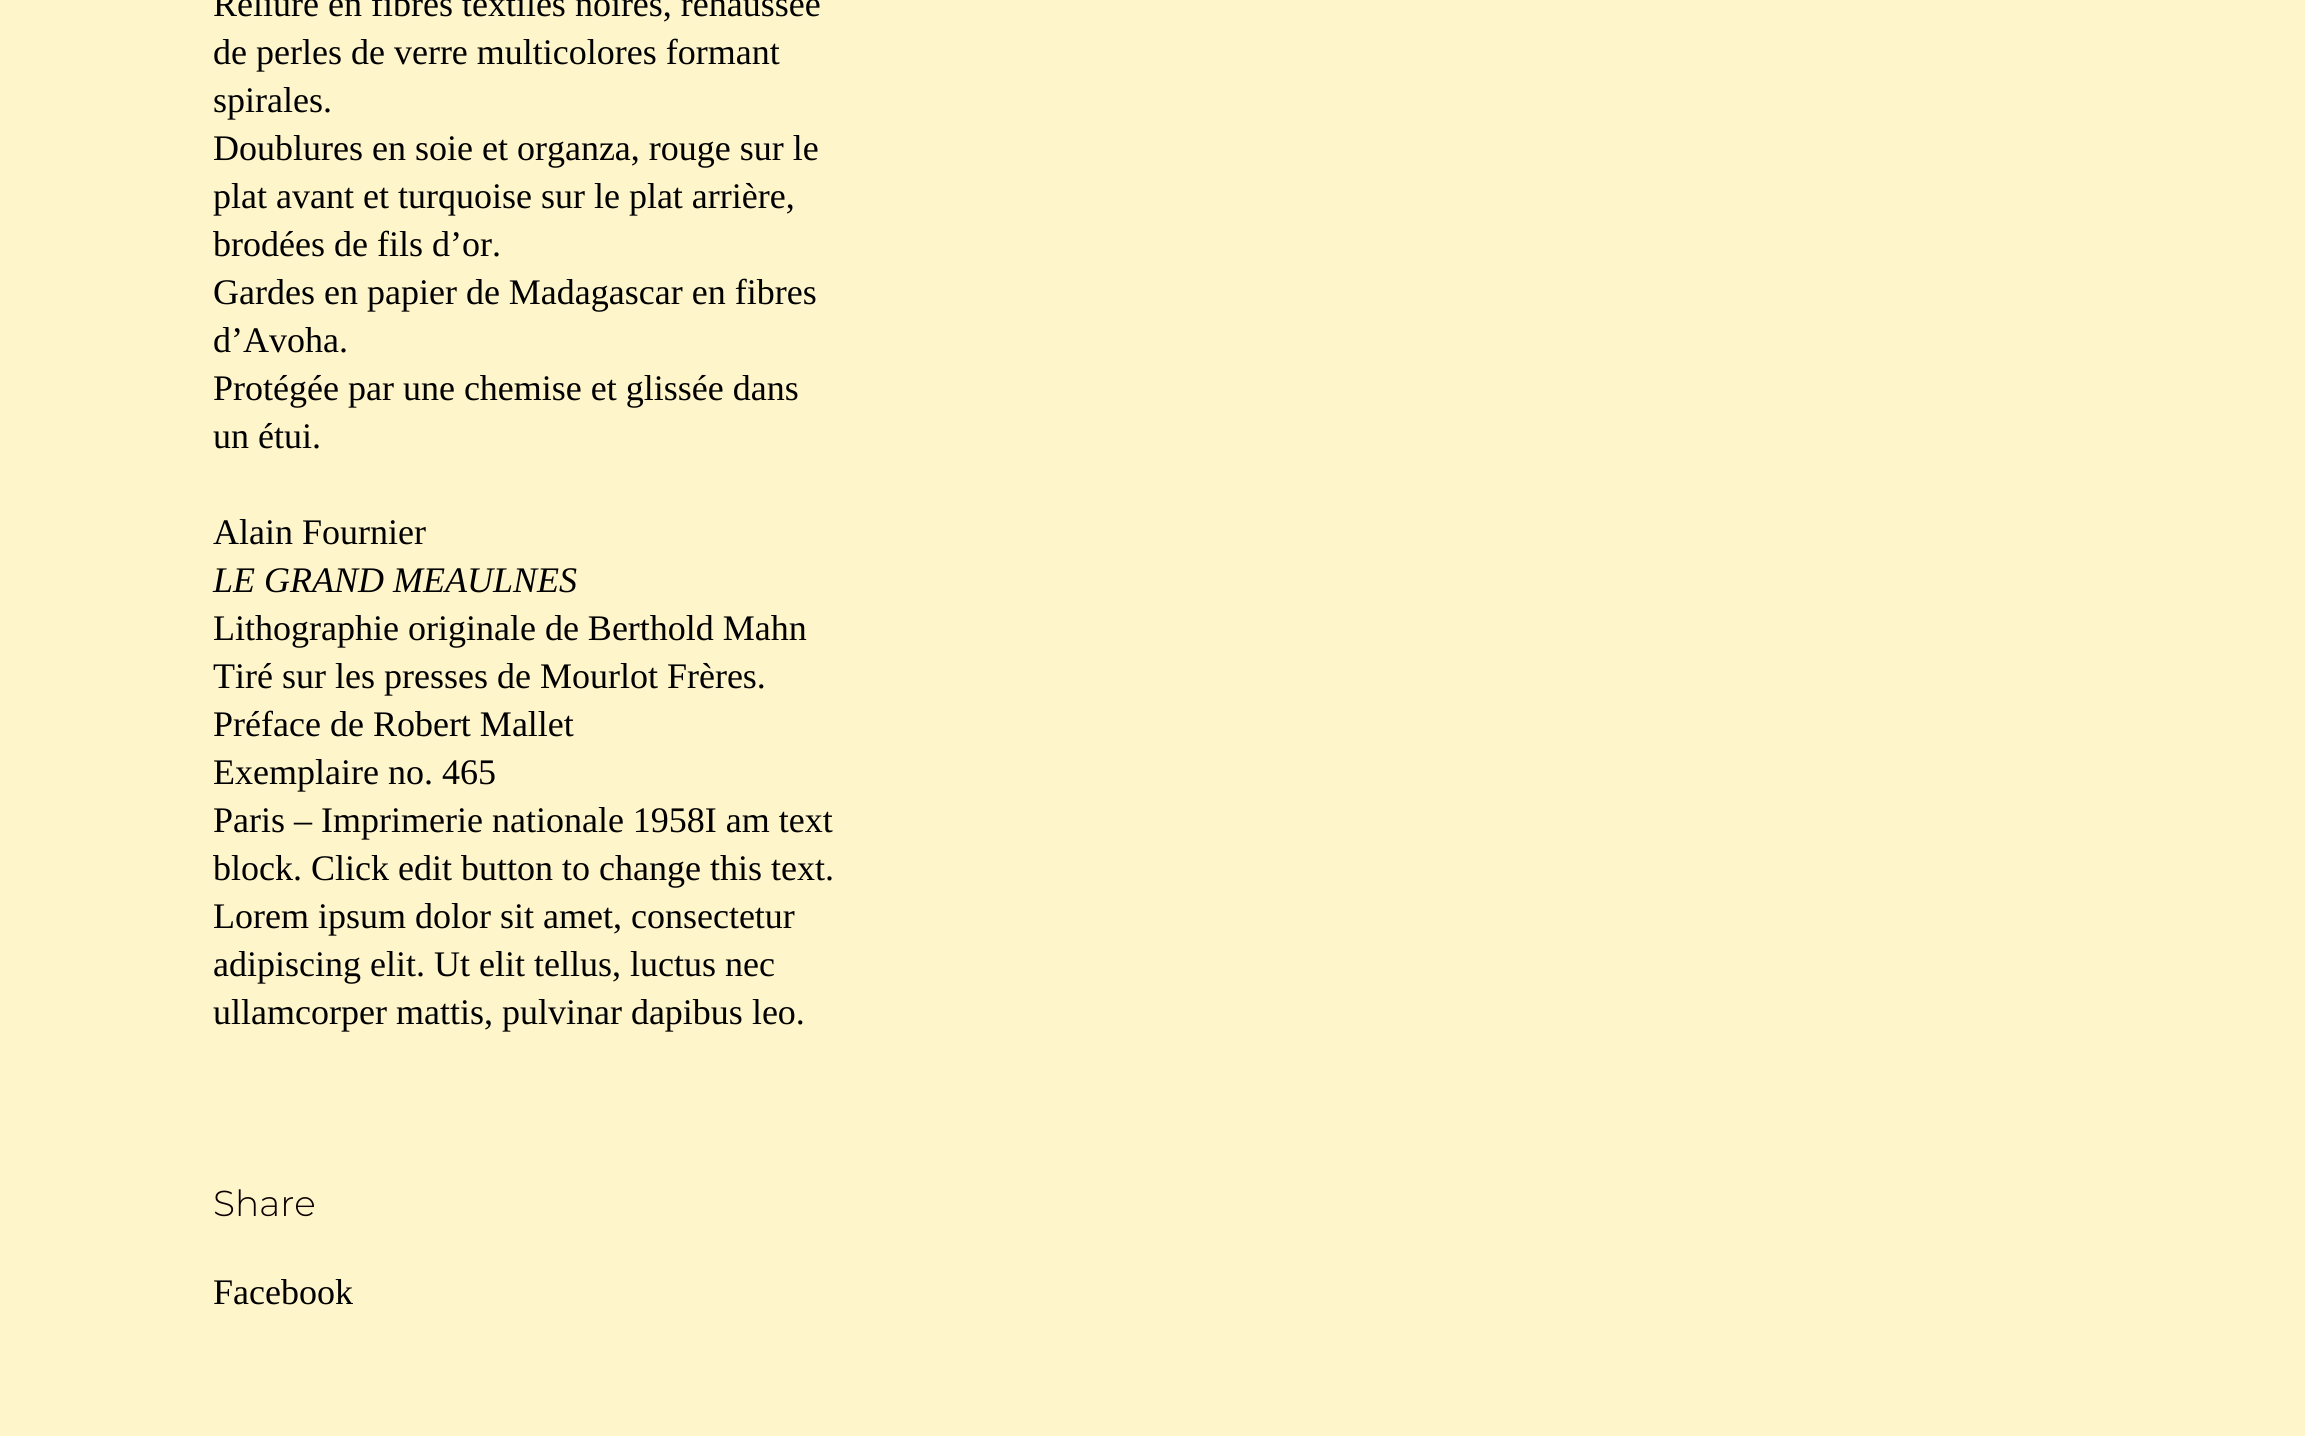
import math
import cairo



def draw(context):
    context.set_source_rgb(1, 245 / 255, 203 / 255)
    context.paint()
    context.select_font_face("Liberation Serif")
    context.set_font_size(36)
    context.set_source_rgb(0, 0, 0)
    context.move_to(213, 16)
    context.show_text("Reliure en fibres textiles noires, rehaussée")
    context.move_to(213, 64)
    context.show_text("de perles de verre multicolores formant")
    context.move_to(213, 112)
    context.show_text("spirales.")
    context.move_to(213, 160)
    context.show_text("Doublures en soie et organza, rouge sur le")
    context.move_to(213, 208)
    context.show_text("plat avant et turquoise sur le plat arrière,")
    context.move_to(213, 256)
    context.show_text("brodées de fils d’or.")
    context.move_to(213, 304)
    context.show_text("Gardes en papier de Madagascar en fibres")
    context.move_to(213, 352)
    context.show_text("d’Avoha.")
    context.move_to(213, 400)
    context.show_text("Protégée par une chemise et glissée dans")
    context.move_to(213, 448)
    context.show_text("un étui.")
    context.move_to(213, 544)
    context.show_text("Alain Fournier")
    context.select_font_face("Liberation Serif", cairo.FontSlant.ITALIC)
    context.move_to(213, 592)
    context.show_text("LE GRAND MEAULNES")
    context.select_font_face("Liberation Serif")
    context.move_to(213, 640)
    context.show_text("Lithographie originale de Berthold Mahn")
    context.move_to(213, 688)
    context.show_text("Tiré sur les presses de Mourlot Frères.")
    context.move_to(213, 736)
    context.show_text("Préface de Robert Mallet")
    context.move_to(213, 784)
    context.show_text("Exemplaire no. 465")
    context.move_to(213, 832)
    context.show_text("Paris – Imprimerie nationale 1958I am text")
    context.move_to(213, 880)
    context.show_text("block. Click edit button to change this text.")
    context.move_to(213, 928)
    context.show_text("Lorem ipsum dolor sit amet, consectetur")
    context.move_to(213, 976)
    context.show_text("adipiscing elit. Ut elit tellus, luctus nec")
    context.move_to(213, 1024)
    context.show_text("ullamcorper mattis, pulvinar dapibus leo.")
    context.select_font_face("Montserrat Light")
    context.set_source_rgb(10 / 255, 0, 0)
    context.move_to(213, 1216)
    context.show_text("Share")
    context.select_font_face("Liberation Serif")
    context.set_source_rgb(0, 0, 0)
    context.move_to(213, 1304)
    context.show_text("Facebook")


surface = cairo.ImageSurface(cairo.Format.RGB24, 2305, 1436)
context = cairo.Context(surface)
options = cairo.FontOptions()
options.set_hint_metrics(cairo.HintMetrics.OFF)
options.set_hint_style(cairo.HintStyle.NONE)
context.set_font_options(options)
context.set_miter_limit(4)
draw(context)
surface.write_to_png("out.png")
